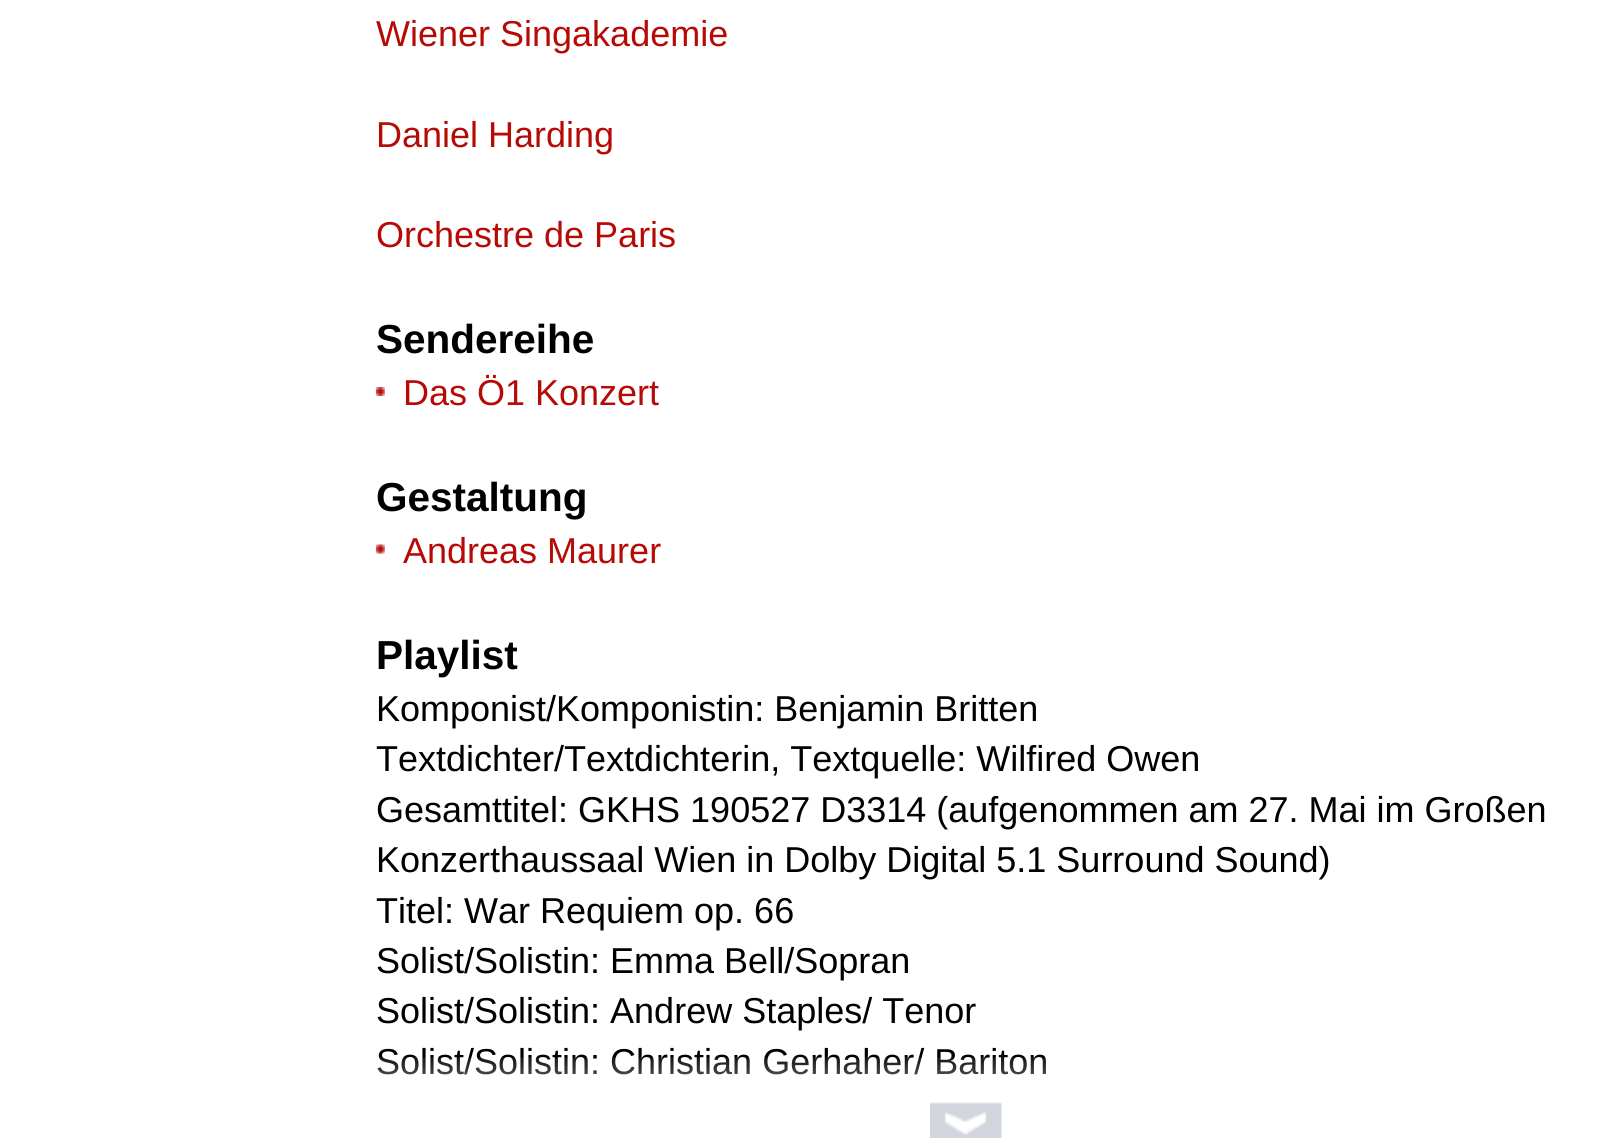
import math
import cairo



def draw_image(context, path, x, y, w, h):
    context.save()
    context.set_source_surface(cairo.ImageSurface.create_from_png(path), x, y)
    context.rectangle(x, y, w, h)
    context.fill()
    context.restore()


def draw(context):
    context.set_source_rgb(1, 1, 1)
    context.paint()
    draw_image(context, "images/1.png", 375, 387, 10, 9)
    draw_image(context, "images/2.png", 375, 544, 10, 10)
    context.select_font_face("Liberation Sans")
    context.set_font_size(36)
    context.set_source_rgb(182 / 255, 10 / 255, 6 / 255)
    context.move_to(376, 46)
    context.show_text("Wiener Singakademie")
    context.move_to(376, 147)
    context.show_text("Daniel Harding")
    context.move_to(376, 247)
    context.show_text("Orchestre de Paris")
    context.select_font_face("Liberation Sans", cairo.FontSlant.NORMAL, cairo.FontWeight.BOLD)
    context.set_font_size(40.5)
    context.set_source_rgb(0, 0, 0)
    context.move_to(376, 353)
    context.show_text("Sendereihe")
    context.select_font_face("Liberation Sans")
    context.set_font_size(36)
    context.set_source_rgb(182 / 255, 10 / 255, 6 / 255)
    context.move_to(403, 405)
    context.show_text("Das Ö1 Konzert")
    context.select_font_face("Liberation Sans", cairo.FontSlant.NORMAL, cairo.FontWeight.BOLD)
    context.set_font_size(40.5)
    context.set_source_rgb(0, 0, 0)
    context.move_to(376, 511)
    context.show_text("Gestaltung")
    context.select_font_face("Liberation Sans")
    context.set_font_size(36)
    context.set_source_rgb(182 / 255, 10 / 255, 6 / 255)
    context.move_to(403, 563)
    context.show_text("Andreas Maurer")
    context.select_font_face("Liberation Sans", cairo.FontSlant.NORMAL, cairo.FontWeight.BOLD)
    context.set_font_size(40.5)
    context.set_source_rgb(0, 0, 0)
    context.move_to(376, 669)
    context.show_text("Playlist")
    context.select_font_face("Liberation Sans")
    context.set_font_size(36)
    context.move_to(376, 721)
    context.show_text("Komponist/Komponistin: Benjamin Britten")
    context.move_to(376, 771)
    context.show_text("Textdichter/Textdichterin, Textquelle: Wilfired Owen")
    context.move_to(376, 822)
    context.show_text("Gesamttitel: GKHS 190527 D3314 (aufgenommen am 27. Mai im Großen")
    context.move_to(376, 872)
    context.show_text("Konzerthaussaal Wien in Dolby Digital 5.1 Surround Sound)")
    context.move_to(376, 923)
    context.show_text("Titel: War Requiem op. 66")
    context.move_to(376, 973)
    context.show_text("Solist/Solistin: Emma Bell/Sopran")
    context.move_to(376, 1023)
    context.show_text("Solist/Solistin: Andrew Staples/ Tenor")
    context.move_to(376, 1074)
    context.show_text("Solist/Solistin: Christian Gerhaher/ Bariton")
    draw_image(context, "images/3.png", 377, 1057, 669, 75)
    draw_image(context, "images/4.png", 930, 1102, 72, 36)


surface = cairo.ImageSurface(cairo.Format.RGB24, 1619, 1138)
context = cairo.Context(surface)
options = cairo.FontOptions()
options.set_hint_metrics(cairo.HintMetrics.OFF)
options.set_hint_style(cairo.HintStyle.NONE)
context.set_font_options(options)
context.set_miter_limit(4)
draw(context)
surface.write_to_png("out.png")
